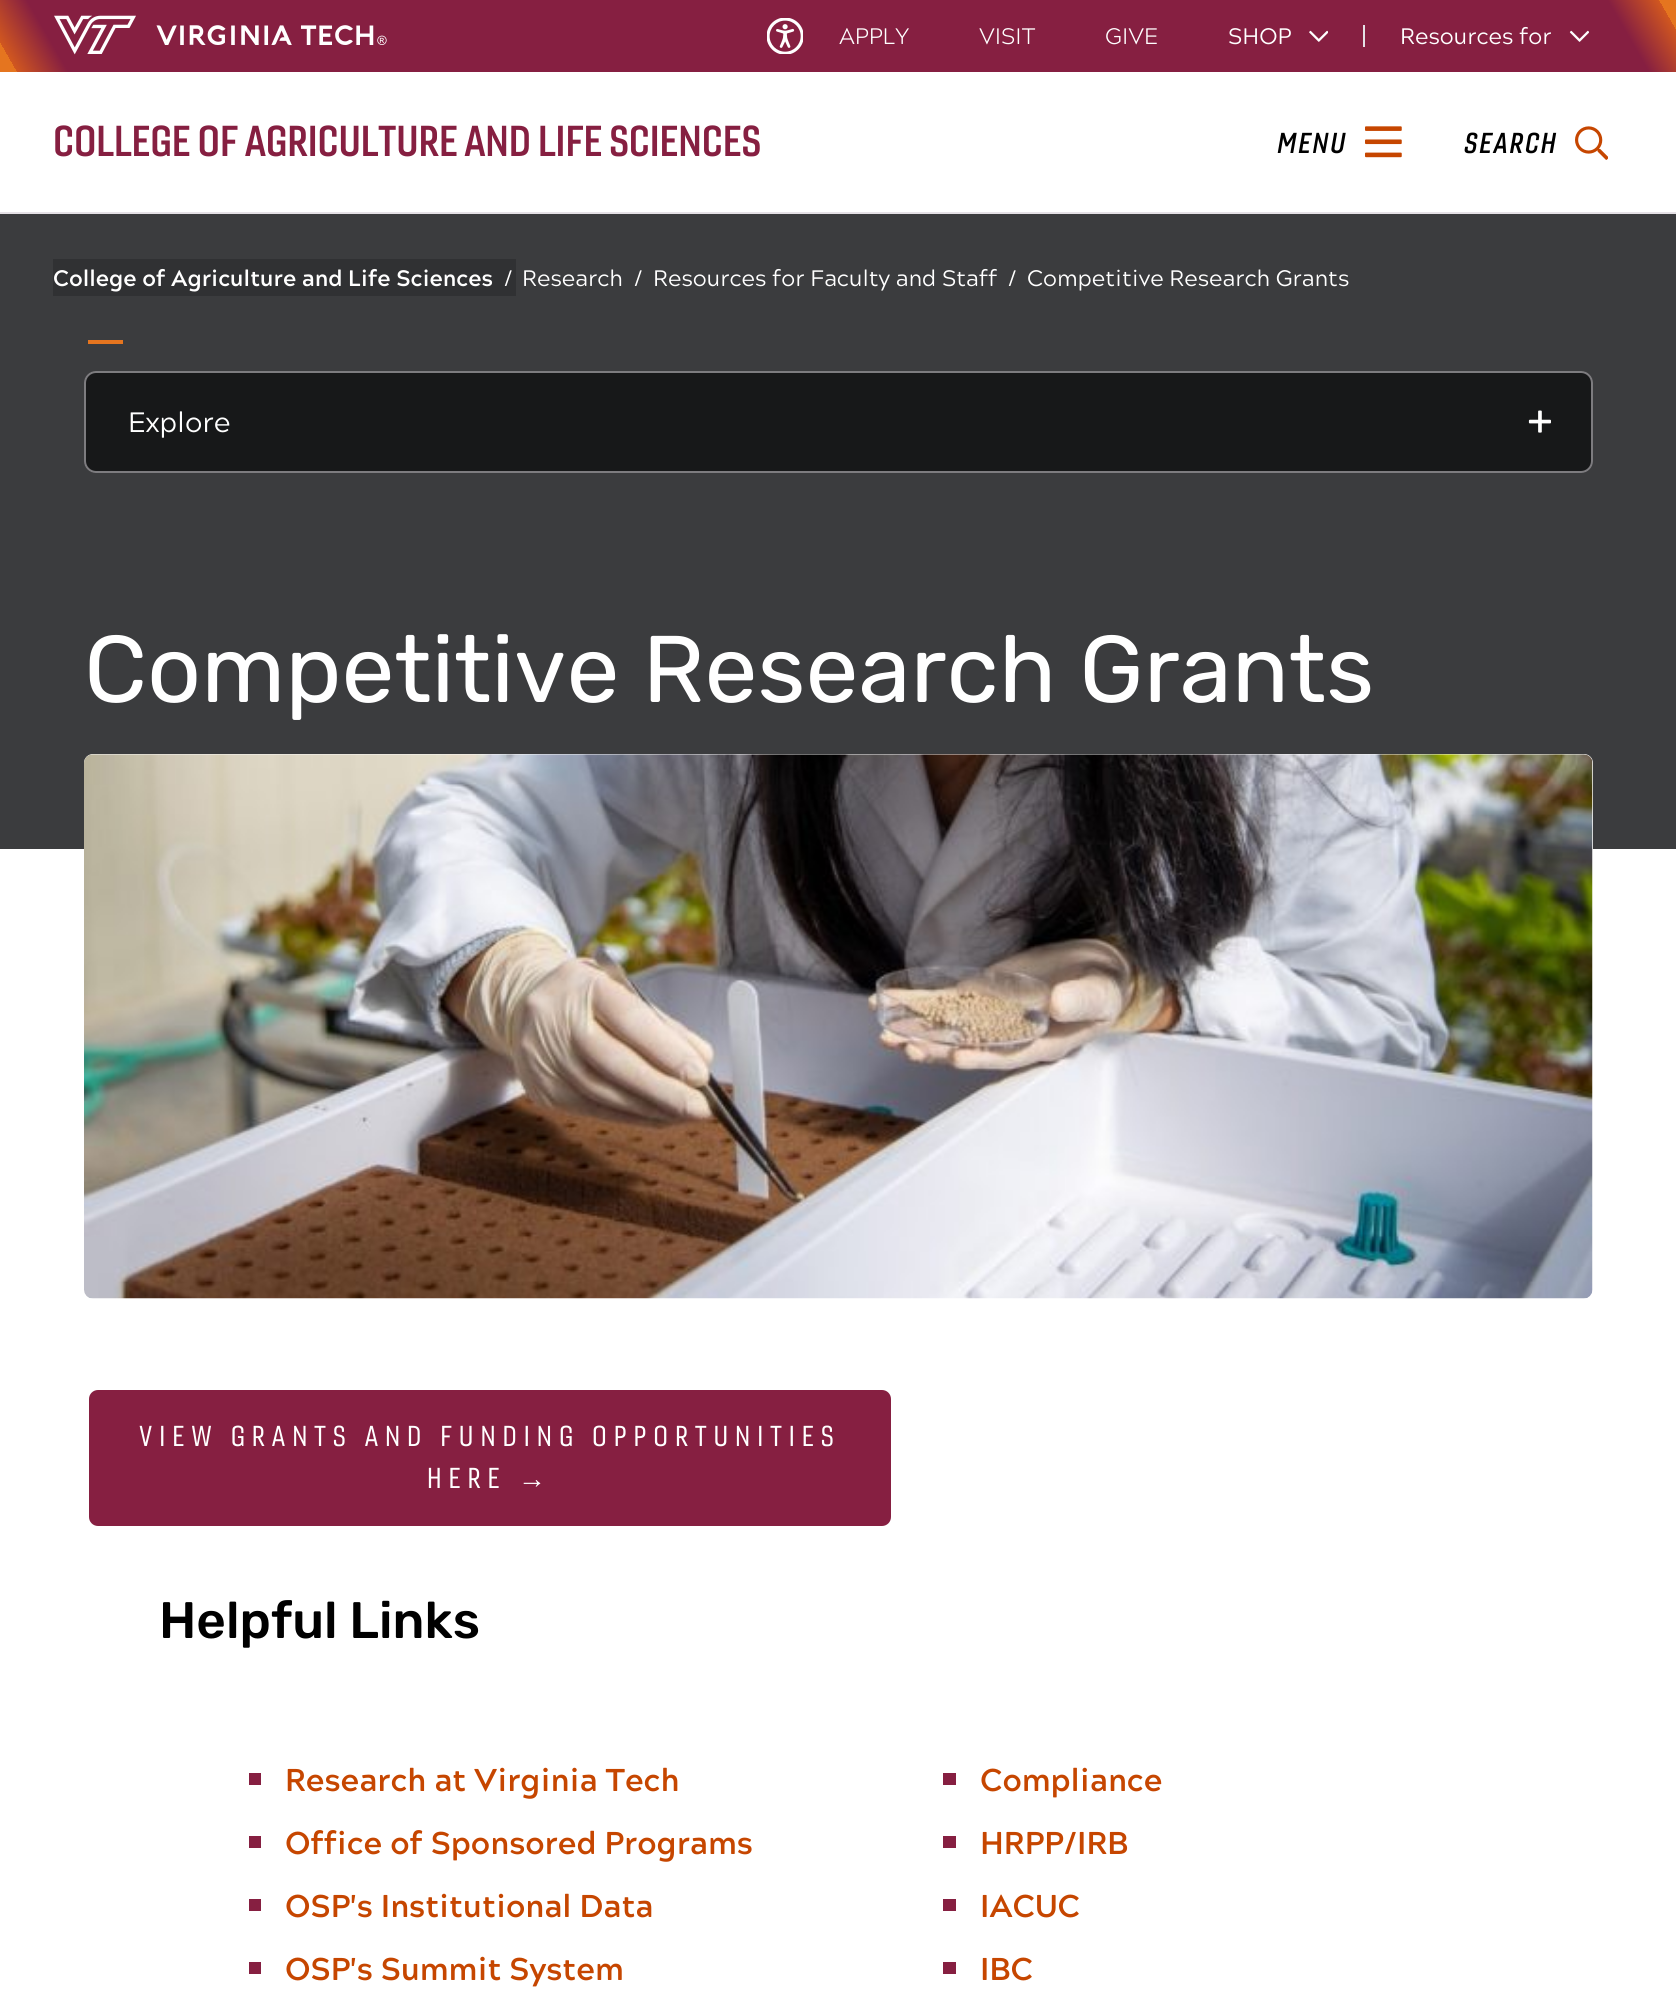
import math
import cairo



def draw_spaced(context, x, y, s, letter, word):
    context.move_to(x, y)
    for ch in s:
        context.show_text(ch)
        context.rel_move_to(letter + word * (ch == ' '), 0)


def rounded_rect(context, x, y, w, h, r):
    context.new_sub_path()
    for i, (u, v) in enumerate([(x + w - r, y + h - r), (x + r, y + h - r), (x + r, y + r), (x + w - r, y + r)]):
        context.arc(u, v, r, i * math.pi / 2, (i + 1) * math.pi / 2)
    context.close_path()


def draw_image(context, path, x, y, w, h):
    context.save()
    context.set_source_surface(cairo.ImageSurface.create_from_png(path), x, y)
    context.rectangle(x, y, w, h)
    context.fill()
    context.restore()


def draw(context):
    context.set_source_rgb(1, 1, 1)
    context.paint()
    context.set_source_rgb(229 / 255, 225 / 255, 230 / 255)
    context.rectangle(0, 212, 1676, 2)
    context.fill()
    gradient = cairo.LinearGradient(194, 408, 1482, -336)
    gradient.add_color_stop_rgba(0.01, 229 / 255, 117 / 255, 31 / 255, 1)
    gradient.add_color_stop_rgba(0.01, 209 / 255, 87 / 255, 31 / 255, 1)
    gradient.add_color_stop_rgba(0.04, 134 / 255, 31 / 255, 65 / 255, 1)
    gradient.add_color_stop_rgba(0.96, 134 / 255, 31 / 255, 65 / 255, 1)
    gradient.add_color_stop_rgba(0.99, 209 / 255, 87 / 255, 31 / 255, 1)
    gradient.add_color_stop_rgba(0.99, 229 / 255, 117 / 255, 31 / 255, 1)
    context.set_source(gradient)
    context.rectangle(0, 0, 1676, 72)
    context.fill()
    draw_image(context, "images/1.png", 54, 15, 82, 40)
    draw_image(context, "images/2.png", 767, 18, 36, 36)
    draw_image(context, "images/3.png", 1309, 30, 19, 12)
    context.set_source_rgb(229 / 255, 225 / 255, 230 / 255)
    context.rectangle(1363, 25, 2, 22)
    context.fill()
    draw_image(context, "images/4.png", 1569, 30, 20, 12)
    draw_image(context, "images/5.png", 1365, 126, 37, 32)
    draw_image(context, "images/6.png", 1575, 126, 33, 34)
    context.set_source_rgb(59 / 255, 60 / 255, 62 / 255)
    context.rectangle(0, 214, 1676, 635)
    context.fill()
    context.set_source_rgb(48 / 255, 49 / 255, 51 / 255)
    context.rectangle(53, 259, 463, 37)
    context.fill()
    context.set_source_rgb(229 / 255, 117 / 255, 31 / 255)
    context.rectangle(88, 340, 35, 4)
    context.fill()
    context.set_source_rgb(23 / 255, 24 / 255, 25 / 255)
    rounded_rect(context, 84, 371, 1509, 102, 12)
    context.fill()
    rounded_rect(context, 85, 372, 1507, 100, 11)
    context.set_source_rgba(229 / 255, 225 / 255, 230 / 255, 0.5)
    context.stroke()
    draw_image(context, "images/7.png", 1528, 410, 23, 23)
    context.set_source_rgb(1, 1, 1)
    rounded_rect(context, 84, 754, 1509, 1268, 9)
    context.fill()
    draw_image(context, "images/8.png", 84, 754, 1509, 545)
    context.set_source_rgb(134 / 255, 31 / 255, 65 / 255)
    rounded_rect(context, 91, 1392, 798, 132, 7)
    context.fill_preserve()
    context.set_line_width(4)
    context.stroke()
    context.rectangle(249, 1773, 12, 12)
    context.fill()
    context.rectangle(249, 1836, 12, 12)
    context.fill()
    context.rectangle(249, 1899, 12, 12)
    context.fill()
    context.rectangle(249, 1962, 12, 12)
    context.fill()
    context.rectangle(943, 1773, 13, 12)
    context.fill()
    context.rectangle(943, 1836, 13, 12)
    context.fill()
    context.rectangle(943, 1899, 13, 12)
    context.fill()
    context.rectangle(943, 1962, 13, 12)
    context.fill()
    context.select_font_face("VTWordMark")
    context.set_font_size(28)
    context.set_source_rgb(1, 1, 1)
    context.move_to(156, 45)
    context.show_text("VIRGINIA TECH®")
    context.select_font_face("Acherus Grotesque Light")
    context.set_font_size(22.4)
    context.move_to(839, 44)
    context.show_text("APPLY")
    context.move_to(979, 44)
    context.show_text("VISIT")
    context.move_to(1105, 44)
    context.show_text("GIVE")
    context.select_font_face("Acherus Grotesque")
    context.move_to(1228, 44)
    context.show_text("SHOP")
    context.move_to(1400, 44)
    context.show_text("Resources for")
    context.select_font_face("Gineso", cairo.FontSlant.NORMAL, cairo.FontWeight.BOLD)
    context.set_font_size(42)
    context.set_source_rgb(134 / 255, 31 / 255, 65 / 255)
    context.move_to(53, 156)
    context.show_text("COLLEGE OF AGRICULTURE AND LIFE SCIENCES")
    context.select_font_face("Gineso", cairo.FontSlant.ITALIC, cairo.FontWeight.BOLD)
    context.set_font_size(28)
    context.set_source_rgb(0, 0, 0)
    draw_spaced(context, 1277, 153, "MENU", 2, 0)
    draw_spaced(context, 1464, 153, "SEARCH", 2, 0)
    context.select_font_face("Acherus Grotesque", cairo.FontSlant.NORMAL, cairo.FontWeight.BOLD)
    context.set_font_size(22.4)
    context.set_source_rgb(1, 1, 1)
    context.move_to(53, 286)
    context.show_text("College of Agriculture and Life Sciences")
    context.select_font_face("Acherus Grotesque")
    context.move_to(504, 286)
    context.show_text("/")
    context.move_to(522, 286)
    context.show_text("Research")
    context.move_to(634, 286)
    context.show_text("/")
    context.move_to(653, 286)
    context.show_text("Resources for Faculty and Staff")
    context.move_to(1008, 286)
    context.show_text("/")
    context.move_to(1027, 286)
    context.show_text("Competitive Research Grants")
    context.set_font_size(28)
    context.move_to(128, 432)
    context.show_text("Explore")
    context.select_font_face("Rubik")
    context.set_font_size(94.5)
    context.move_to(84, 702)
    context.show_text("Competitive Research Grants")
    context.select_font_face("Gineso Medium")
    context.set_font_size(28)
    draw_spaced(context, 139, 1446, "VIEW GRANTS AND FUNDING OPPORTUNITIES", 7, 0)
    draw_spaced(context, 427, 1488, "HERE", 7, 0)
    context.select_font_face("Liberation Sans")
    draw_spaced(context, 518, 1488, "→", 7, 0)
    context.select_font_face("Rubik Medium")
    context.set_font_size(51.25)
    context.set_source_rgb(0, 0, 0)
    context.move_to(159, 1638)
    context.show_text("Helpful Links")
    context.select_font_face("Acherus Grotesque", cairo.FontSlant.NORMAL, cairo.FontWeight.BOLD)
    context.set_font_size(31.5)
    context.set_source_rgb(198 / 255, 70 / 255, 0)
    context.move_to(285, 1791)
    context.show_text("Research at Virginia Tech")
    context.move_to(285, 1854)
    context.show_text("Office of Sponsored Programs")
    context.move_to(285, 1917)
    context.show_text("OSP's Institutional Data")
    context.move_to(285, 1980)
    context.show_text("OSP's Summit System")
    context.move_to(980, 1791)
    context.show_text("Compliance")
    context.move_to(980, 1854)
    context.show_text("HRPP/IRB")
    context.move_to(980, 1917)
    context.show_text("IACUC")
    context.move_to(980, 1980)
    context.show_text("IBC")


surface = cairo.ImageSurface(cairo.Format.RGB24, 1676, 2013)
context = cairo.Context(surface)
options = cairo.FontOptions()
options.set_hint_metrics(cairo.HintMetrics.OFF)
options.set_hint_style(cairo.HintStyle.NONE)
context.set_font_options(options)
context.set_miter_limit(4)
draw(context)
surface.write_to_png("out.png")
